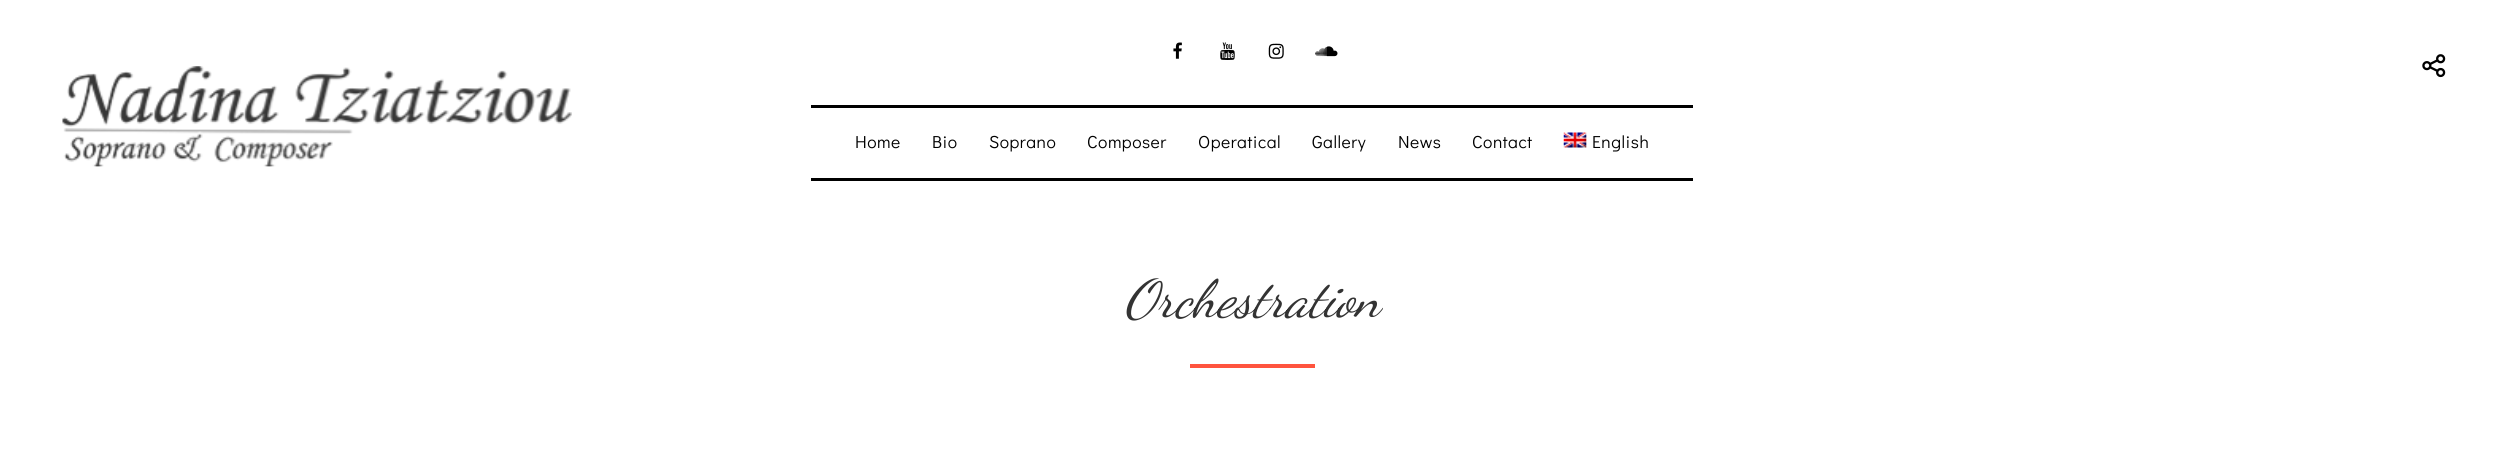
import math
import cairo



def draw_spaced(context, x, y, s, letter, word):
    context.move_to(x, y)
    for ch in s:
        context.show_text(ch)
        context.rel_move_to(letter + word * (ch == ' '), 0)


def draw_image(context, path, x, y, w, h):
    context.save()
    context.set_source_surface(cairo.ImageSurface.create_from_png(path), x, y)
    context.rectangle(x, y, w, h)
    context.fill()
    context.restore()


def draw(context):
    context.set_source_rgb(1, 1, 1)
    context.paint()
    draw_image(context, "images/1.png", 1173, 42, 9, 17)
    draw_image(context, "images/2.png", 1220, 42, 15, 18)
    draw_image(context, "images/3.png", 1268, 43, 16, 16)
    draw_image(context, "images/4.png", 1315, 46, 23, 11)
    draw_image(context, "images/5.png", 2422, 54, 24, 24)
    draw_image(context, "images/6.png", 62, 66, 510, 101)
    context.set_source_rgb(0, 0, 0)
    context.rectangle(811, 105, 882, 3)
    context.fill()
    context.rectangle(811, 178, 882, 3)
    context.fill()
    draw_image(context, "images/7.png", 1563, 132, 24, 16)
    context.set_source_rgb(1, 84 / 255, 62 / 255)
    context.rectangle(1190, 364, 125, 4)
    context.fill()
    context.select_font_face("Didact Gothic")
    context.set_font_size(17.5)
    context.set_source_rgb(0, 0, 0)
    draw_spaced(context, 855, 148, "Home", 0.5, 0)
    draw_spaced(context, 932, 148, "Bio", 0.5, 0)
    draw_spaced(context, 989, 148, "Soprano", 0.5, 0)
    draw_spaced(context, 1087, 148, "Composer", 0.5, 0)
    draw_spaced(context, 1198, 148, "Operatical", 0.5, 0)
    draw_spaced(context, 1312, 148, "Gallery", 0.5, 0)
    draw_spaced(context, 1398, 148, "News", 0.5, 0)
    draw_spaced(context, 1472, 148, "Contact", 0.5, 0)
    draw_spaced(context, 1592, 148, "English", 0.5, 0)
    context.select_font_face("Dancing Script", cairo.FontSlant.ITALIC)
    context.set_font_size(52.5)
    context.set_source_rgb(51 / 255, 51 / 255, 51 / 255)
    context.move_to(1124, 316)
    context.show_text("Orchestration")


surface = cairo.ImageSurface(cairo.Format.RGB24, 2503, 453)
context = cairo.Context(surface)
options = cairo.FontOptions()
options.set_hint_metrics(cairo.HintMetrics.OFF)
options.set_hint_style(cairo.HintStyle.NONE)
context.set_font_options(options)
context.set_miter_limit(4)
draw(context)
surface.write_to_png("out.png")
